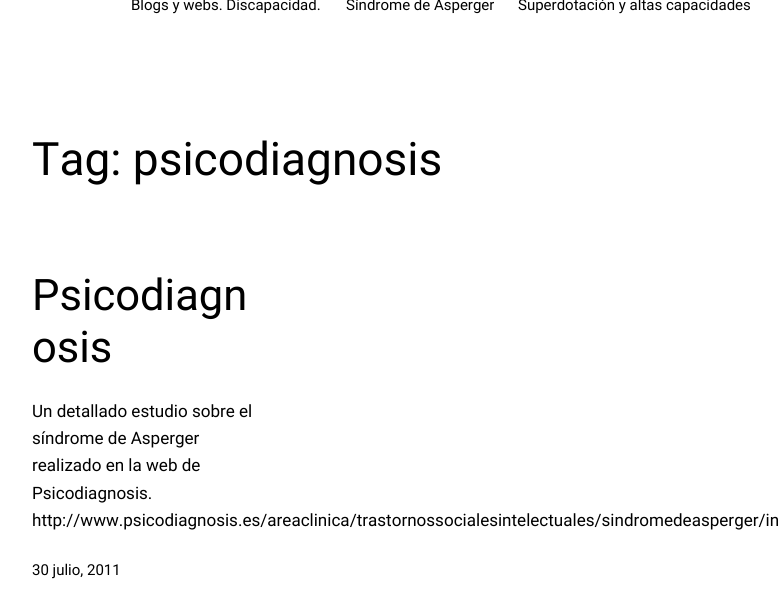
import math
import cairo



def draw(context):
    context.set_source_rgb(1, 1, 1)
    context.paint()
    context.select_font_face("Roboto")
    context.set_font_size(15)
    context.set_source_rgb(0, 0, 0)
    context.move_to(131, 10)
    context.show_text("Blogs y webs. Discapacidad.")
    context.move_to(346, 10)
    context.show_text("Síndrome de Asperger")
    context.move_to(518, 10)
    context.show_text("Superdotación y altas capacidades")
    context.set_font_size(46)
    context.move_to(32, 175)
    context.show_text("Tag: psicodiagnosis")
    context.set_font_size(43.5)
    context.move_to(32, 310)
    context.show_text("Psicodiagn")
    context.move_to(32, 362)
    context.show_text("osis")
    context.set_font_size(17.05)
    context.move_to(32, 417)
    context.show_text("Un detallado estudio sobre el")
    context.move_to(32, 444)
    context.show_text("síndrome de Asperger")
    context.move_to(32, 471)
    context.show_text("realizado en la web de")
    context.move_to(32, 499)
    context.show_text("Psicodiagnosis.")
    context.move_to(32, 526)
    context.show_text("http://www.psicodiagnosis.es/areaclinica/trastornossocialesintelectuales/sindromedeasperger/in")
    context.set_font_size(15)
    context.move_to(32, 575)
    context.show_text("30 julio, 2011")


surface = cairo.ImageSurface(cairo.Format.RGB24, 784, 613)
context = cairo.Context(surface)
options = cairo.FontOptions()
options.set_hint_metrics(cairo.HintMetrics.OFF)
options.set_hint_style(cairo.HintStyle.NONE)
context.set_font_options(options)
context.set_miter_limit(4)
draw(context)
surface.write_to_png("out.png")
